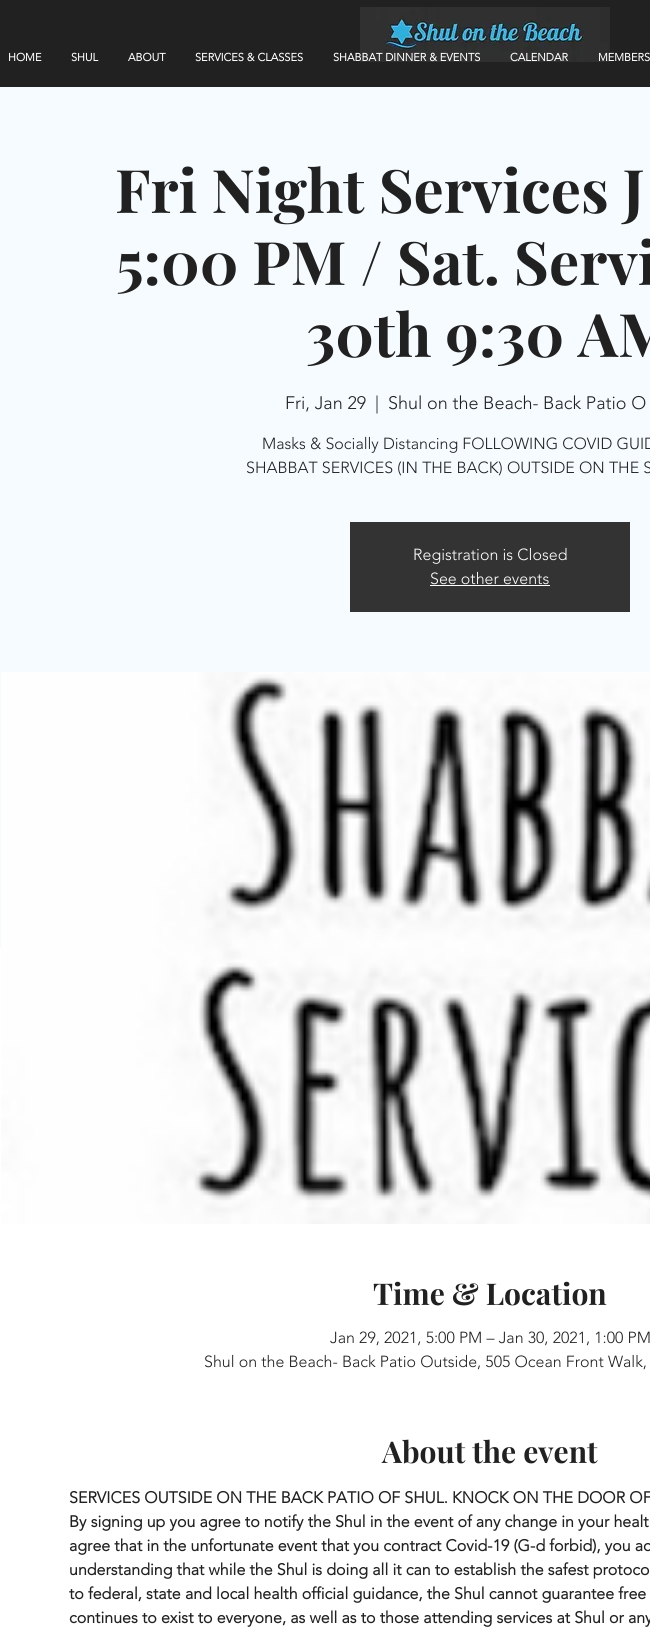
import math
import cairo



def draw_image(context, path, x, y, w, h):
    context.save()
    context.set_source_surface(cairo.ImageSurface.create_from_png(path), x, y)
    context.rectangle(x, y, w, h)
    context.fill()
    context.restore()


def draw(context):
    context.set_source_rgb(1, 1, 1)
    context.paint()
    context.set_source_rgb(33 / 255, 33 / 255, 33 / 255)
    context.rectangle(0, 0, 650, 87)
    context.fill()
    draw_image(context, "images/1.png", 360, 7, 250, 55)
    context.set_source_rgb(246 / 255, 251 / 255, 1)
    context.rectangle(0, 87, 650, 861)
    context.fill()
    context.set_source_rgb(51 / 255, 51 / 255, 51 / 255)
    context.rectangle(350, 522, 280, 90)
    context.fill()
    context.set_source_rgb(1, 1, 1)
    context.rectangle(430, 585, 120, 1)
    context.fill()
    draw_image(context, "images/2.png", 1, 672, 649, 552)
    context.select_font_face("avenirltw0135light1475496", cairo.FontSlant.NORMAL, cairo.FontWeight.BOLD)
    context.set_font_size(11)
    context.move_to(8, 61)
    context.show_text("HOME")
    context.move_to(71, 61)
    context.show_text("SHUL")
    context.move_to(128, 61)
    context.show_text("ABOUT")
    context.move_to(195, 61)
    context.show_text("SERVICES & CLASSES")
    context.move_to(333, 61)
    context.show_text("SHABBAT DINNER & EVENTS")
    context.move_to(510, 61)
    context.show_text("CALENDAR")
    context.move_to(598, 61)
    context.show_text("MEMBERS")
    context.select_font_face("Playfair Display", cairo.FontSlant.NORMAL, cairo.FontWeight.BOLD)
    context.set_font_size(60)
    context.set_source_rgb(33 / 255, 33 / 255, 33 / 255)
    context.move_to(115, 213)
    context.show_text("Fri Night Services J")
    context.move_to(116, 285)
    context.show_text("5:00 PM / Sat. Servi")
    context.move_to(306, 357)
    context.show_text("30th 9:30 AM")
    context.select_font_face("avenirltw0135light1475496 Light")
    context.set_font_size(18)
    context.move_to(285, 409)
    context.show_text("Fri, Jan 29")
    context.move_to(375, 409)
    context.show_text("|")
    context.move_to(388, 409)
    context.show_text("Shul on the Beach- Back Patio O")
    context.set_font_size(16)
    context.move_to(262, 449)
    context.show_text("Masks & Socially Distancing FOLLOWING COVID GUID")
    context.move_to(246, 473)
    context.show_text("SHABBAT SERVICES (IN THE BACK) OUTSIDE ON THE S")
    context.set_source_rgb(1, 1, 1)
    context.move_to(413, 560)
    context.show_text("Registration is Closed")
    context.move_to(430, 584)
    context.show_text("See other events")
    context.select_font_face("Playfair Display", cairo.FontSlant.NORMAL, cairo.FontWeight.BOLD)
    context.set_font_size(30)
    context.set_source_rgb(33 / 255, 33 / 255, 33 / 255)
    context.move_to(373, 1305)
    context.show_text("Time & Location")
    context.select_font_face("avenirltw0135light1475496 Light")
    context.set_font_size(16)
    context.move_to(330, 1343)
    context.show_text("Jan 29, 2021, 5:00 PM – Jan 30, 2021, 1:00 PM")
    context.move_to(204, 1367)
    context.show_text("Shul on the Beach- Back Patio Outside, 505 Ocean Front Walk,")
    context.select_font_face("Playfair Display", cairo.FontSlant.NORMAL, cairo.FontWeight.BOLD)
    context.set_font_size(30)
    context.move_to(382, 1463)
    context.show_text("About the event")
    context.select_font_face("avenirltw0135light1475496", cairo.FontSlant.NORMAL, cairo.FontWeight.BOLD)
    context.set_font_size(16)
    context.move_to(69, 1503)
    context.show_text("SERVICES OUTSIDE ON THE BACK PATIO OF SHUL. KNOCK ON THE DOOR OF")
    context.move_to(69, 1527)
    context.show_text("By signing up you agree to notify the Shul in the event of any change in your healt")
    context.move_to(69, 1551)
    context.show_text("agree that in the unfortunate event that you contract Covid-19 (G-d forbid), you ac")
    context.move_to(69, 1575)
    context.show_text("understanding that while the Shul is doing all it can to establish the safest protoco")
    context.move_to(69, 1599)
    context.show_text("to federal, state and local health official guidance, the Shul cannot guarantee free")
    context.move_to(69, 1623)
    context.show_text("continues to exist to everyone, as well as to those attending services at Shul or any")


surface = cairo.ImageSurface(cairo.Format.RGB24, 650, 1638)
context = cairo.Context(surface)
options = cairo.FontOptions()
options.set_hint_metrics(cairo.HintMetrics.OFF)
options.set_hint_style(cairo.HintStyle.NONE)
context.set_font_options(options)
context.set_miter_limit(4)
draw(context)
surface.write_to_png("out.png")
